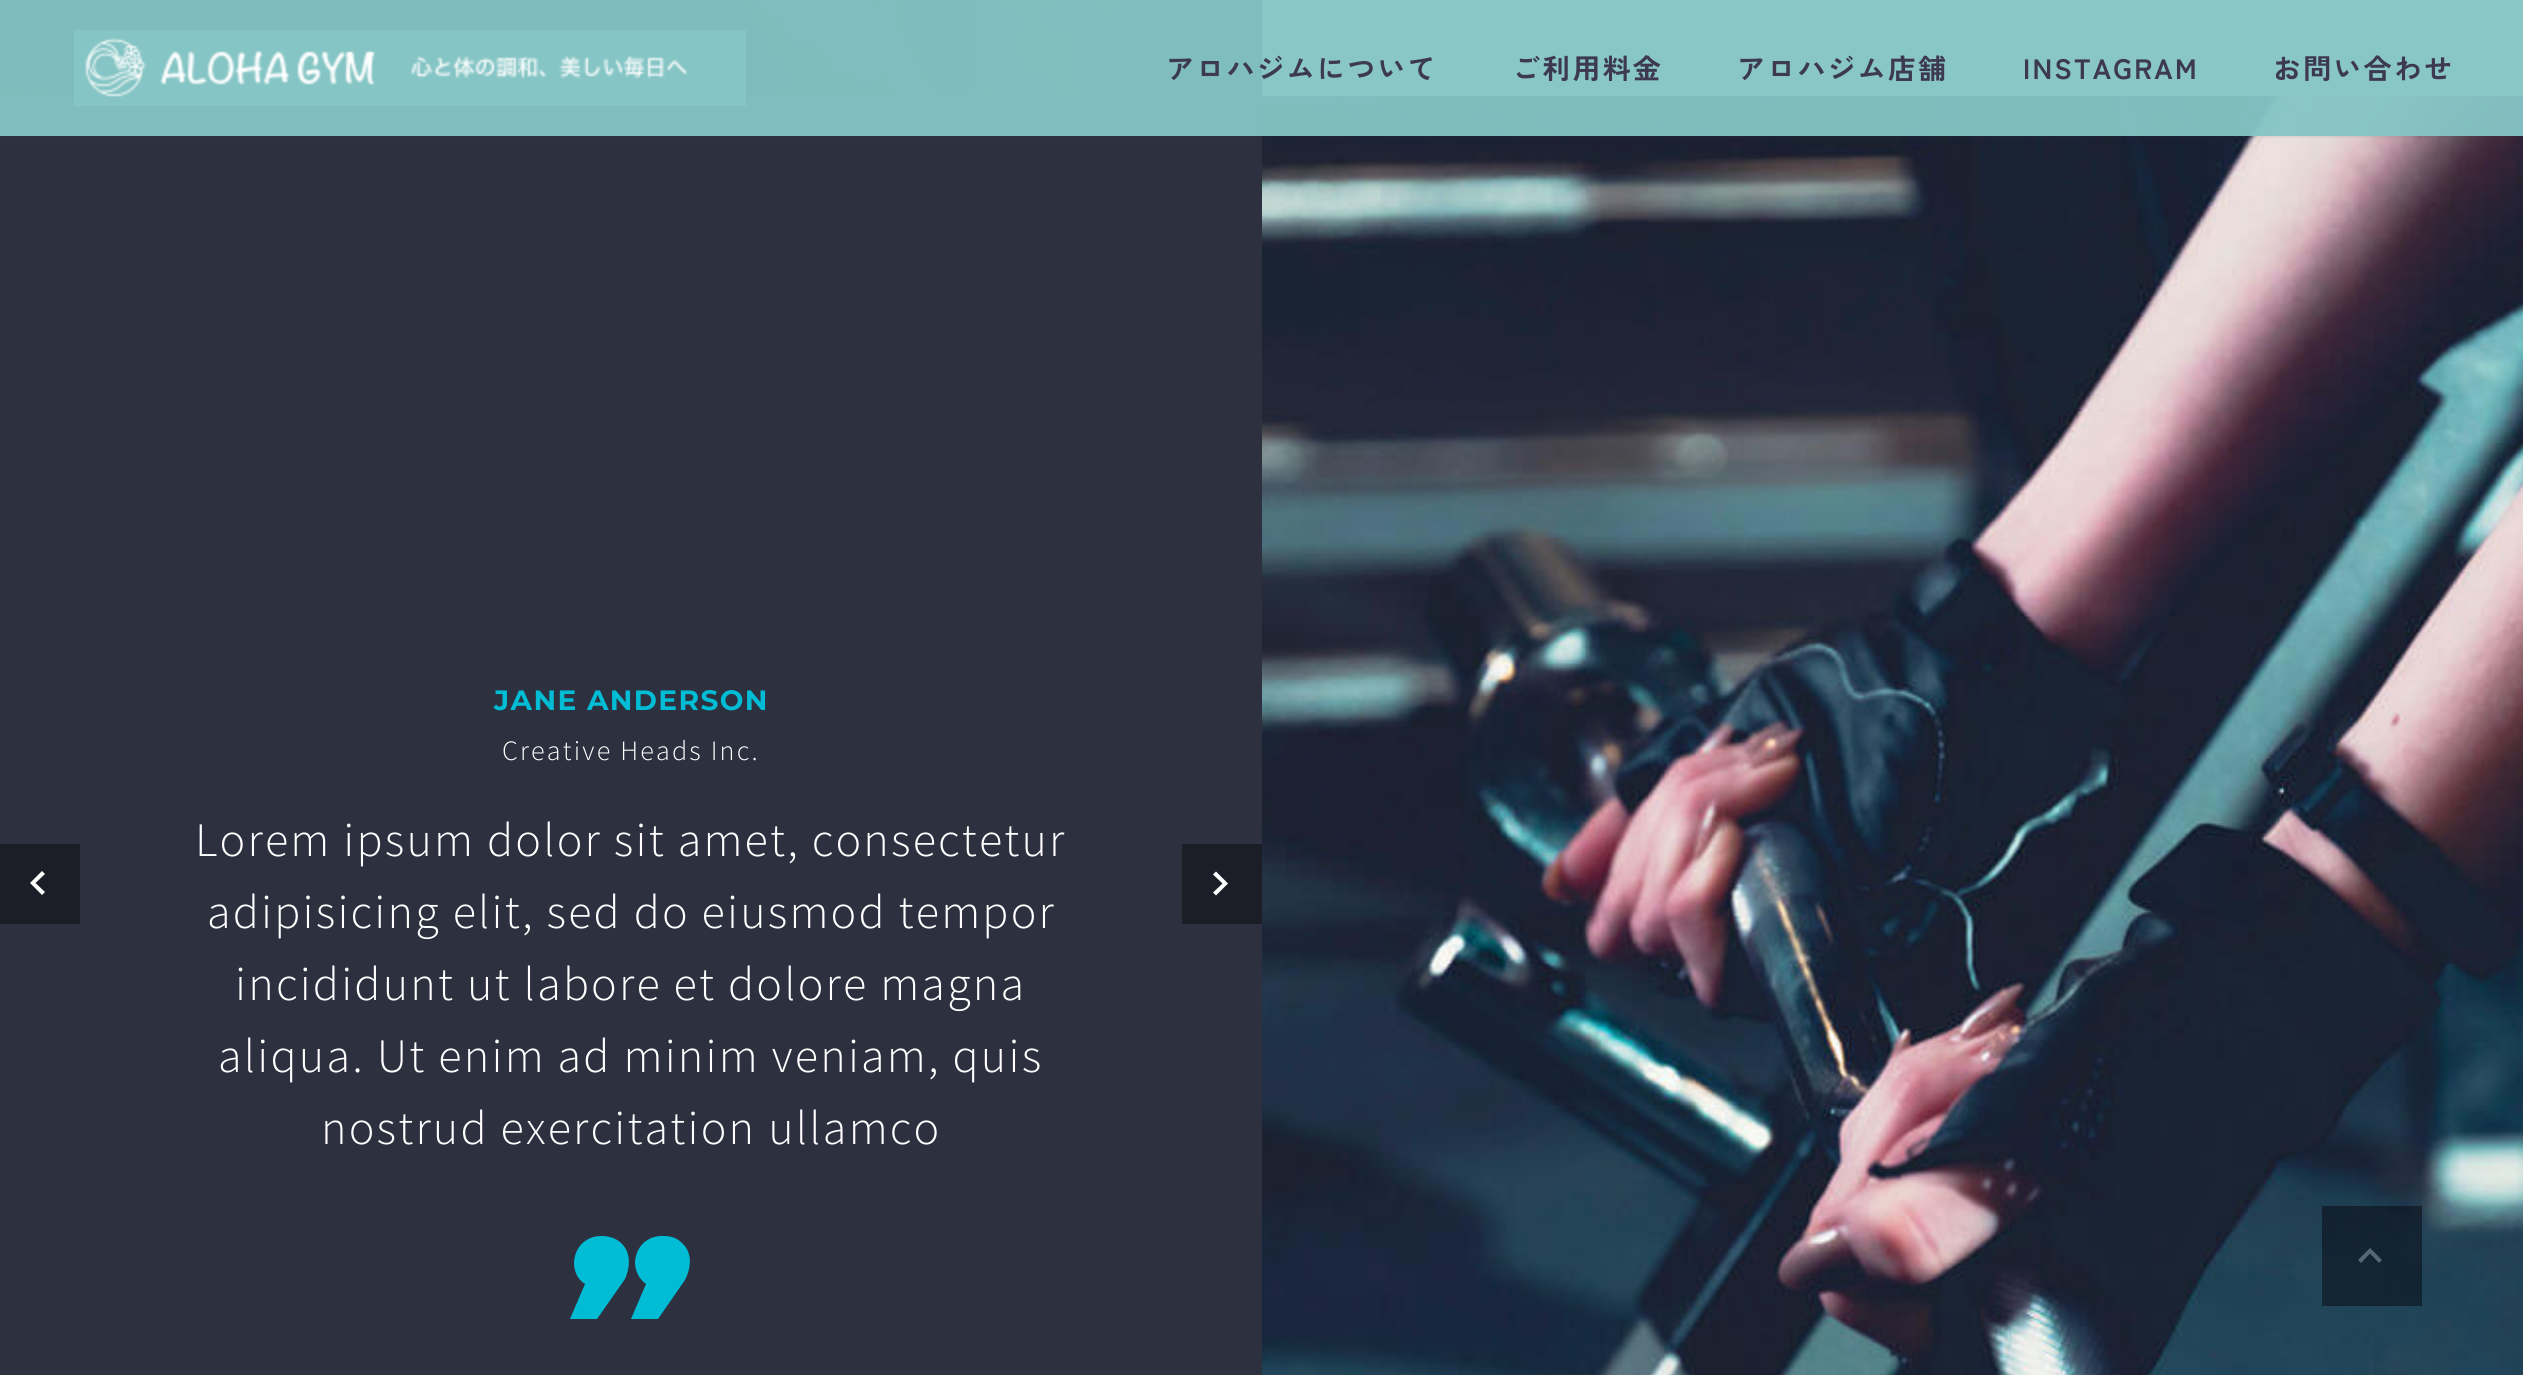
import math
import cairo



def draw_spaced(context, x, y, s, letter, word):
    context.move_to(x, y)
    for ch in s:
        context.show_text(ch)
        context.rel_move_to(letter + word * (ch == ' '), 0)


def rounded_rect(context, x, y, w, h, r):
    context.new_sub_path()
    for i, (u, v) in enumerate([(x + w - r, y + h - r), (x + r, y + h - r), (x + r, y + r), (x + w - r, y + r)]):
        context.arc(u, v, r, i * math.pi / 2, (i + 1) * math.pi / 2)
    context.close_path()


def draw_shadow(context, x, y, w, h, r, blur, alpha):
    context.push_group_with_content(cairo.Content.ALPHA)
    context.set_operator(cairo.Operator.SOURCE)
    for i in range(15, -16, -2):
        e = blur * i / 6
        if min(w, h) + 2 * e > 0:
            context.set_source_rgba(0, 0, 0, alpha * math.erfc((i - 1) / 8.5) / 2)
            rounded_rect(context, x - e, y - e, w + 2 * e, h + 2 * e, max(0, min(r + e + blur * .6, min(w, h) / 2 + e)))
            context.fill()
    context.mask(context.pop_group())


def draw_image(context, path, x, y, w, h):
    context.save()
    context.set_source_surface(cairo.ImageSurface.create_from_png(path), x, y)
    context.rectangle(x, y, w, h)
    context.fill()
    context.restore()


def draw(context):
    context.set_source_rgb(1, 1, 1)
    context.paint()
    draw_image(context, "images/2.png", 0, 0, 1262, 96)
    context.set_source_rgb(236 / 255, 241 / 255, 242 / 255)
    context.rectangle(1262, 0, 1261, 96)
    context.fill()
    context.set_source_rgb(45 / 255, 48 / 255, 63 / 255)
    context.rectangle(0, 96, 1262, 1279)
    context.fill()
    draw_image(context, "images/3.png", 1262, 96, 1261, 1279)
    context.save()
    context.rectangle(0, 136, 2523, 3)
    context.clip()
    context.set_source_rgb(56 / 255, 69 / 255, 84 / 255)
    draw_shadow(context, 0, 0, 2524, 136, 0, 2, 0.2)
    context.restore()
    context.set_source_rgba(133 / 255, 197 / 255, 197 / 255, 0.95)
    context.rectangle(0, 0, 2523, 136)
    context.fill()
    draw_image(context, "images/1.png", 74, 30, 672, 76)
    context.set_source_rgb(0, 188 / 255, 212 / 255)
    context.new_path()
    context.move_to(682, 1243)
    context.curve_to(677, 1238, 671, 1236, 664, 1236)
    context.curve_to(648, 1235, 636, 1246, 635, 1262)
    context.curve_to(635, 1271, 639, 1279, 646, 1284)
    context.line_to(631, 1319)
    context.line_to(658, 1319)
    context.line_to(685, 1280)
    context.curve_to(691, 1268, 693, 1253, 682, 1243)
    context.close_path()
    context.move_to(601, 1236)
    context.curve_to(586, 1236, 575, 1247, 574, 1262)
    context.curve_to(574, 1271, 577, 1279, 585, 1284)
    context.line_to(570, 1319)
    context.line_to(597, 1319)
    context.line_to(625, 1279)
    context.curve_to(630, 1268, 631, 1254, 623, 1245)
    context.curve_to(617, 1238, 609, 1236, 601, 1236)
    context.close_path()
    context.fill()
    context.set_source_rgb(28 / 255, 30 / 255, 39 / 255)
    context.rectangle(0, 844, 80, 80)
    context.fill()
    context.set_source_rgb(1, 1, 1)
    context.new_path()
    context.move_to(45, 892)
    context.line_to(35.5, 883)
    context.line_to(45, 874)
    context.line_to(42, 871)
    context.line_to(30, 883)
    context.line_to(42, 895)
    context.close_path()
    context.fill()
    context.set_source_rgb(28 / 255, 30 / 255, 39 / 255)
    context.rectangle(1182, 844, 80, 80)
    context.fill()
    context.set_source_rgb(1, 1, 1)
    context.new_path()
    context.move_to(1213, 892.5)
    context.line_to(1222.5, 883.5)
    context.line_to(1213, 874.5)
    context.line_to(1216, 871.5)
    context.line_to(1228, 883.5)
    context.line_to(1216, 895.5)
    context.close_path()
    context.fill()
    context.set_source_rgba(6 / 255, 6 / 255, 15 / 255, 0.5)
    context.rectangle(2322, 1206, 100, 100)
    context.fill()
    context.set_source_rgb(86 / 255, 102 / 255, 115 / 255)
    context.new_path()
    context.move_to(2361, 1263)
    context.line_to(2370, 1253.5)
    context.line_to(2379, 1263)
    context.line_to(2382, 1260)
    context.line_to(2370, 1248)
    context.line_to(2358, 1260)
    context.close_path()
    context.fill()
    context.select_font_face("Zen Kaku Gothic New", cairo.FontSlant.NORMAL, cairo.FontWeight.BOLD)
    context.set_font_size(28)
    context.set_source_rgb(60 / 255, 57 / 255, 80 / 255)
    draw_spaced(context, 1166, 79, "アロハジムについて", 2.2, 0)
    draw_spaced(context, 1512, 79, "ご利用料金", 2.2, 0)
    draw_spaced(context, 1737, 79, "アロハジム店舗", 2.2, 0)
    draw_spaced(context, 2023, 79, "INSTAGRAM", 2.2, 0)
    draw_spaced(context, 2273, 79, "お問い合わせ", 2.2, 0)
    context.select_font_face("Montserrat", cairo.FontSlant.NORMAL, cairo.FontWeight.BOLD)
    context.set_source_rgb(0, 188 / 255, 212 / 255)
    draw_spaced(context, 494, 710, "JANE ANDERSON", 1.4, 0)
    context.select_font_face("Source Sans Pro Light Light")
    context.set_source_rgb(1, 1, 1)
    draw_spaced(context, 502, 760, "Creative Heads Inc.", 2.2, 0)
    context.set_font_size(48)
    draw_spaced(context, 195, 856, "Lorem ipsum dolor sit amet, consectetur", 2.2, 0)
    draw_spaced(context, 207, 928, "adipisicing elit, sed do eiusmod tempor", 2.2, 0)
    draw_spaced(context, 235, 1000, "incididunt ut labore et dolore magna", 2.2, 0)
    draw_spaced(context, 218, 1072, "aliqua. Ut enim ad minim veniam, quis", 2.2, 0)
    draw_spaced(context, 321, 1144, "nostrud exercitation ullamco", 2.2, 0)


surface = cairo.ImageSurface(cairo.Format.RGB24, 2523, 1375)
context = cairo.Context(surface)
options = cairo.FontOptions()
options.set_hint_metrics(cairo.HintMetrics.OFF)
options.set_hint_style(cairo.HintStyle.NONE)
context.set_font_options(options)
context.set_miter_limit(4)
draw(context)
surface.write_to_png("out.png")
